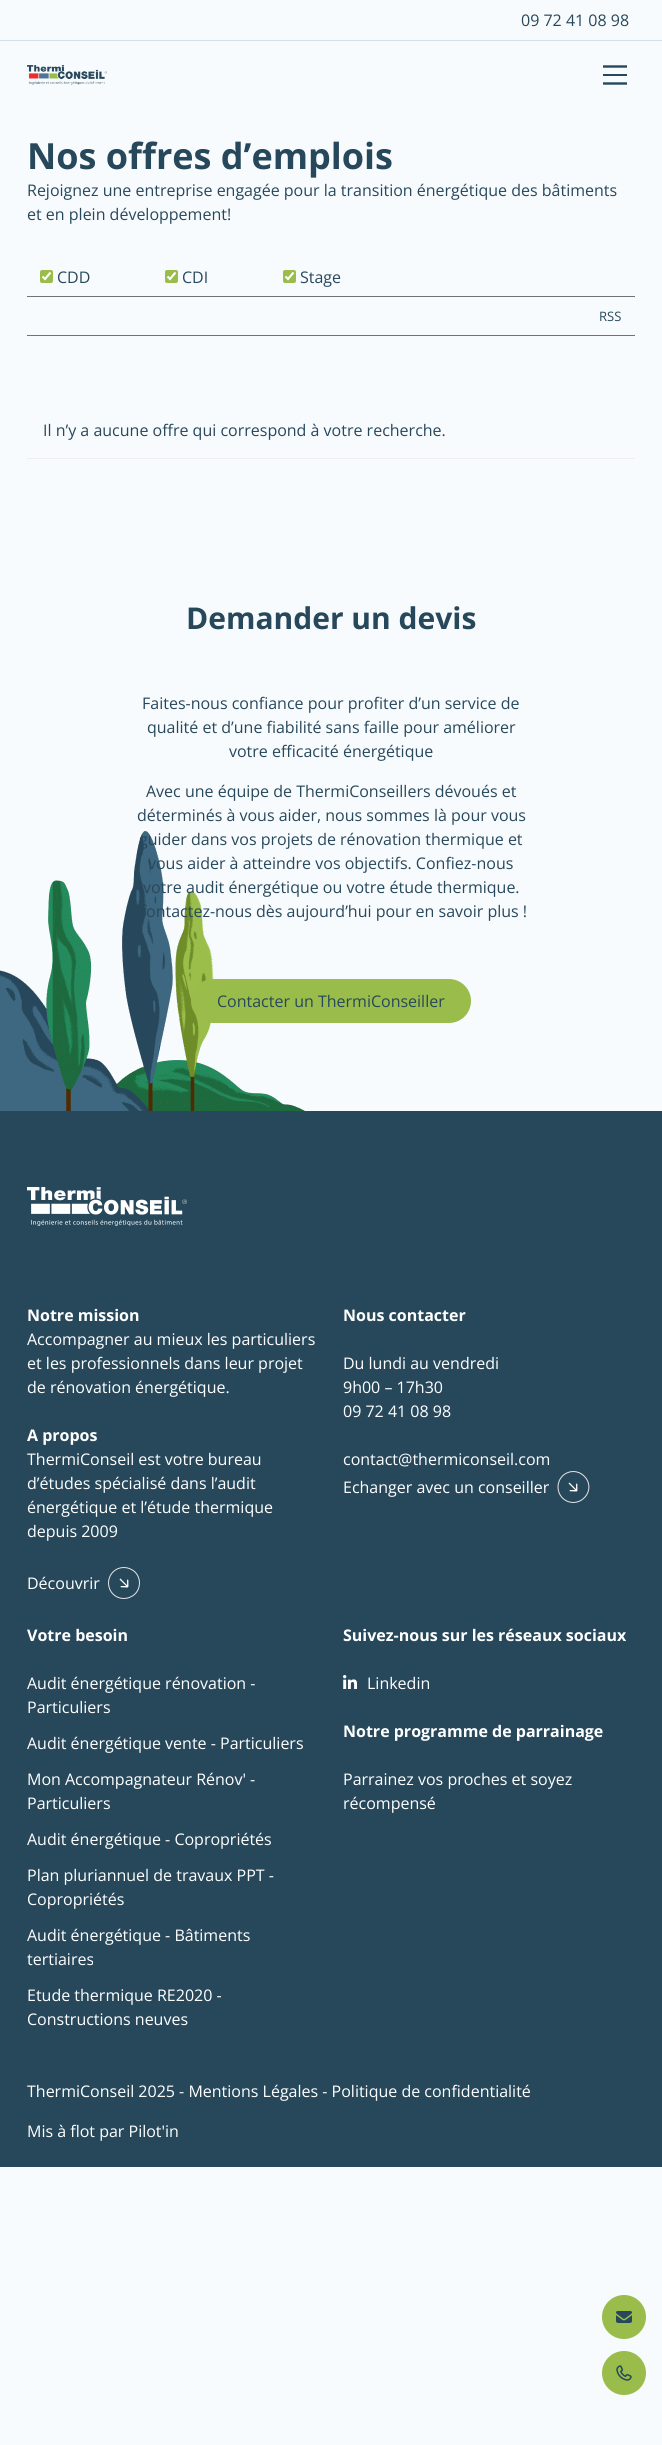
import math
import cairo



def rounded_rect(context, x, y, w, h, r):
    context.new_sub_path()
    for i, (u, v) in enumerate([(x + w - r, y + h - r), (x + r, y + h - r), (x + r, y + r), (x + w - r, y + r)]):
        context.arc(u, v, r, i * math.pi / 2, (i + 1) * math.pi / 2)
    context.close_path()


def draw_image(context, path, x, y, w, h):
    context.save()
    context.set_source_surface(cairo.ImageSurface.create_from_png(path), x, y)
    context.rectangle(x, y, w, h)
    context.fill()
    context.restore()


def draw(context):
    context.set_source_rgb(248 / 255, 251 / 255, 253 / 255)
    context.paint()
    context.set_source_rgb(214 / 255, 224 / 255, 232 / 255)
    context.rectangle(0, 40, 662, 1)
    context.fill()
    draw_image(context, "images/1.png", 27, 65, 80, 20)
    context.new_path()
    context.move_to(603, 66.5)
    context.line_to(627, 66.5)
    context.set_source_rgb(39 / 255, 72 / 255, 91 / 255)
    context.set_line_width(2.4)
    context.stroke()
    context.rectangle(603, 74, 24, 2)
    context.fill()
    context.new_path()
    context.move_to(603, 83.5)
    context.line_to(627, 83.5)
    context.stroke()
    context.set_source_rgb(153 / 255, 188 / 255, 74 / 255)
    rounded_rect(context, 40, 270, 13, 13, 2)
    context.fill()
    context.new_path()
    context.move_to(42.5, 276.5)
    context.line_to(45, 279)
    context.line_to(50.5, 272.5)
    context.set_source_rgb(1, 1, 1)
    context.set_line_width(2.1)
    context.stroke()
    context.set_source_rgb(153 / 255, 188 / 255, 74 / 255)
    rounded_rect(context, 165, 270, 13, 13, 2)
    context.fill()
    context.new_path()
    context.move_to(167.5, 276.5)
    context.line_to(170, 279)
    context.line_to(175.5, 272.5)
    context.set_source_rgb(1, 1, 1)
    context.stroke()
    context.set_source_rgb(153 / 255, 188 / 255, 74 / 255)
    rounded_rect(context, 283, 270, 13, 13, 2)
    context.fill()
    context.new_path()
    context.move_to(285.5, 276.5)
    context.line_to(288, 279)
    context.line_to(293.5, 272.5)
    context.set_source_rgb(1, 1, 1)
    context.stroke()
    context.set_source_rgb(113 / 255, 113 / 255, 122 / 255)
    context.rectangle(27, 296, 608, 1)
    context.fill()
    context.rectangle(27, 335, 608, 1)
    context.fill()
    context.set_source_rgb(238 / 255, 238 / 255, 238 / 255)
    context.rectangle(27, 458, 608, 1)
    context.fill()
    draw_image(context, "images/2.png", 0, 831, 305, 280)
    context.set_source_rgb(153 / 255, 188 / 255, 74 / 255)
    rounded_rect(context, 191, 979, 280, 44, 22)
    context.fill()
    context.set_source_rgb(39 / 255, 72 / 255, 91 / 255)
    context.rectangle(0, 1111, 662, 1056)
    context.fill()
    draw_image(context, "images/3.png", 27, 1187, 160, 39)
    context.new_path()
    context.move_to(135, 1572)
    context.curve_to(141, 1578, 141, 1588, 135, 1594)
    context.curve_to(128.5, 1600, 119, 1600, 113, 1594)
    context.curve_to(107, 1588, 107, 1578, 113, 1572)
    context.curve_to(119, 1566, 128.5, 1566, 135, 1572)
    context.close_path()
    context.set_source_rgb(228 / 255, 228 / 255, 231 / 255)
    context.set_line_width(1)
    context.stroke()
    draw_image(context, "images/4.png", 119, 1578, 10, 10)
    context.new_path()
    context.move_to(584, 1476)
    context.curve_to(590.5, 1482, 590.5, 1492, 584, 1498)
    context.curve_to(578, 1504, 568.5, 1504, 562.5, 1498)
    context.curve_to(556.5, 1492, 556.5, 1482, 562.5, 1476)
    context.curve_to(568.5, 1470, 578, 1470, 584, 1476)
    context.close_path()
    context.stroke()
    draw_image(context, "images/4.png", 568, 1482, 10, 10)
    draw_image(context, "images/5.png", 343, 1675, 14, 14)
    context.set_source_rgb(153 / 255, 188 / 255, 74 / 255)
    context.arc(624, 2317, 22, 0, 2 * math.pi)
    context.fill()
    draw_image(context, "images/6.png", 616, 2311, 16, 12)
    context.arc(624, 2373, 22, 0, 2 * math.pi)
    context.fill()
    draw_image(context, "images/7.png", 616, 2365, 16, 16)
    context.select_font_face("Open Sans")
    context.set_font_size(16)
    context.set_source_rgb(39 / 255, 72 / 255, 91 / 255)
    context.move_to(521, 26)
    context.show_text("09 72 41 08 98")
    context.select_font_face("Open Sans", cairo.FontSlant.NORMAL, cairo.FontWeight.BOLD)
    context.set_font_size(36)
    context.move_to(27, 169)
    context.show_text("Nos offres d’emplois")
    context.select_font_face("Open Sans")
    context.set_font_size(16)
    context.move_to(27, 196)
    context.show_text("Rejoignez une entreprise engagée pour la transition énergétique des bâtiments")
    context.move_to(27, 220)
    context.show_text("et en plein développement!")
    context.move_to(57, 283)
    context.show_text("CDD")
    context.move_to(182, 283)
    context.show_text("CDI")
    context.move_to(300, 283)
    context.show_text("Stage")
    context.set_font_size(13)
    context.move_to(599, 321)
    context.show_text("RSS")
    context.set_font_size(16)
    context.move_to(43, 436)
    context.show_text("Il n’y a aucune offre qui correspond à votre recherche.")
    context.select_font_face("Open Sans", cairo.FontSlant.NORMAL, cairo.FontWeight.BOLD)
    context.set_font_size(30)
    context.move_to(186, 629)
    context.show_text("Demander un devis")
    context.select_font_face("Open Sans")
    context.set_font_size(16)
    context.move_to(142, 709)
    context.show_text("Faites-nous confiance pour profiter d’un service de")
    context.move_to(147, 733)
    context.show_text("qualité et d’une fiabilité sans faille pour améliorer")
    context.move_to(229, 757)
    context.show_text("votre efficacité énergétique")
    context.move_to(146, 797)
    context.show_text("Avec une équipe de ThermiConseillers dévoués et")
    context.move_to(137, 821)
    context.show_text("déterminés à vous aider, nous sommes là pour vous")
    context.move_to(139, 845)
    context.show_text("guider dans vos projets de rénovation thermique et")
    context.move_to(148, 869)
    context.show_text("vous aider à atteindre vos objectifs. Confiez-nous")
    context.move_to(143, 893)
    context.show_text("votre audit énergétique ou votre étude thermique.")
    context.move_to(146, 917)
    context.show_text("ontactez-nous dès aujourd’hui pour en savoir plus !")
    context.move_to(217, 1007)
    context.show_text("Contacter un ThermiConseiller")
    context.select_font_face("Open Sans", cairo.FontSlant.NORMAL, cairo.FontWeight.BOLD)
    context.set_source_rgb(1, 1, 1)
    context.move_to(27, 1321)
    context.show_text("Notre mission")
    context.select_font_face("Open Sans")
    context.move_to(27, 1345)
    context.show_text("Accompagner au mieux les particuliers")
    context.move_to(27, 1369)
    context.show_text("et les professionnels dans leur projet")
    context.move_to(27, 1393)
    context.show_text("de rénovation énergétique.")
    context.select_font_face("Open Sans", cairo.FontSlant.NORMAL, cairo.FontWeight.BOLD)
    context.move_to(27, 1441)
    context.show_text("A propos")
    context.select_font_face("Open Sans")
    context.move_to(27, 1465)
    context.show_text("ThermiConseil est votre bureau")
    context.move_to(27, 1489)
    context.show_text("d’études spécialisé dans l’audit")
    context.move_to(27, 1513)
    context.show_text("énergétique et l’étude thermique")
    context.move_to(27, 1537)
    context.show_text("depuis 2009")
    context.move_to(27, 1589)
    context.show_text("Découvrir")
    context.select_font_face("Open Sans", cairo.FontSlant.NORMAL, cairo.FontWeight.BOLD)
    context.move_to(343, 1321)
    context.show_text("Nous contacter")
    context.select_font_face("Open Sans")
    context.move_to(343, 1369)
    context.show_text("Du lundi au vendredi")
    context.move_to(343, 1393)
    context.show_text("9h00 – 17h30")
    context.move_to(343, 1417)
    context.show_text("09 72 41 08 98")
    context.move_to(343, 1465)
    context.show_text("contact@thermiconseil.com")
    context.move_to(343, 1493)
    context.show_text("Echanger avec un conseiller")
    context.select_font_face("Open Sans", cairo.FontSlant.NORMAL, cairo.FontWeight.BOLD)
    context.move_to(27, 1641)
    context.show_text("Votre besoin")
    context.select_font_face("Open Sans")
    context.move_to(27, 1689)
    context.show_text("Audit énergétique rénovation -")
    context.move_to(27, 1713)
    context.show_text("Particuliers")
    context.move_to(27, 1749)
    context.show_text("Audit énergétique vente - Particuliers")
    context.move_to(27, 1785)
    context.show_text("Mon Accompagnateur Rénov' -")
    context.move_to(27, 1809)
    context.show_text("Particuliers")
    context.move_to(27, 1845)
    context.show_text("Audit énergétique - Copropriétés")
    context.move_to(27, 1881)
    context.show_text("Plan pluriannuel de travaux PPT -")
    context.move_to(27, 1905)
    context.show_text("Copropriétés")
    context.move_to(27, 1941)
    context.show_text("Audit énergétique - Bâtiments")
    context.move_to(27, 1965)
    context.show_text("tertiaires")
    context.move_to(27, 2001)
    context.show_text("Etude thermique RE2020 -")
    context.move_to(27, 2025)
    context.show_text("Constructions neuves")
    context.select_font_face("Open Sans", cairo.FontSlant.NORMAL, cairo.FontWeight.BOLD)
    context.move_to(343, 1641)
    context.show_text("Suivez-nous sur les réseaux sociaux")
    context.select_font_face("Open Sans")
    context.move_to(367, 1689)
    context.show_text("Linkedin")
    context.select_font_face("Open Sans", cairo.FontSlant.NORMAL, cairo.FontWeight.BOLD)
    context.move_to(343, 1737)
    context.show_text("Notre programme de parrainage")
    context.select_font_face("Open Sans")
    context.move_to(343, 1785)
    context.show_text("Parrainez vos proches et soyez")
    context.move_to(343, 1809)
    context.show_text("récompensé")
    context.move_to(27, 2097)
    context.show_text("ThermiConseil 2025 - Mentions Légales - Politique de confidentialité")
    context.move_to(27, 2137)
    context.show_text("Mis à flot par Pilot'in")


surface = cairo.ImageSurface(cairo.Format.RGB24, 662, 2445)
context = cairo.Context(surface)
options = cairo.FontOptions()
options.set_hint_metrics(cairo.HintMetrics.OFF)
options.set_hint_style(cairo.HintStyle.NONE)
context.set_font_options(options)
context.set_miter_limit(4)
draw(context)
surface.write_to_png("out.png")
